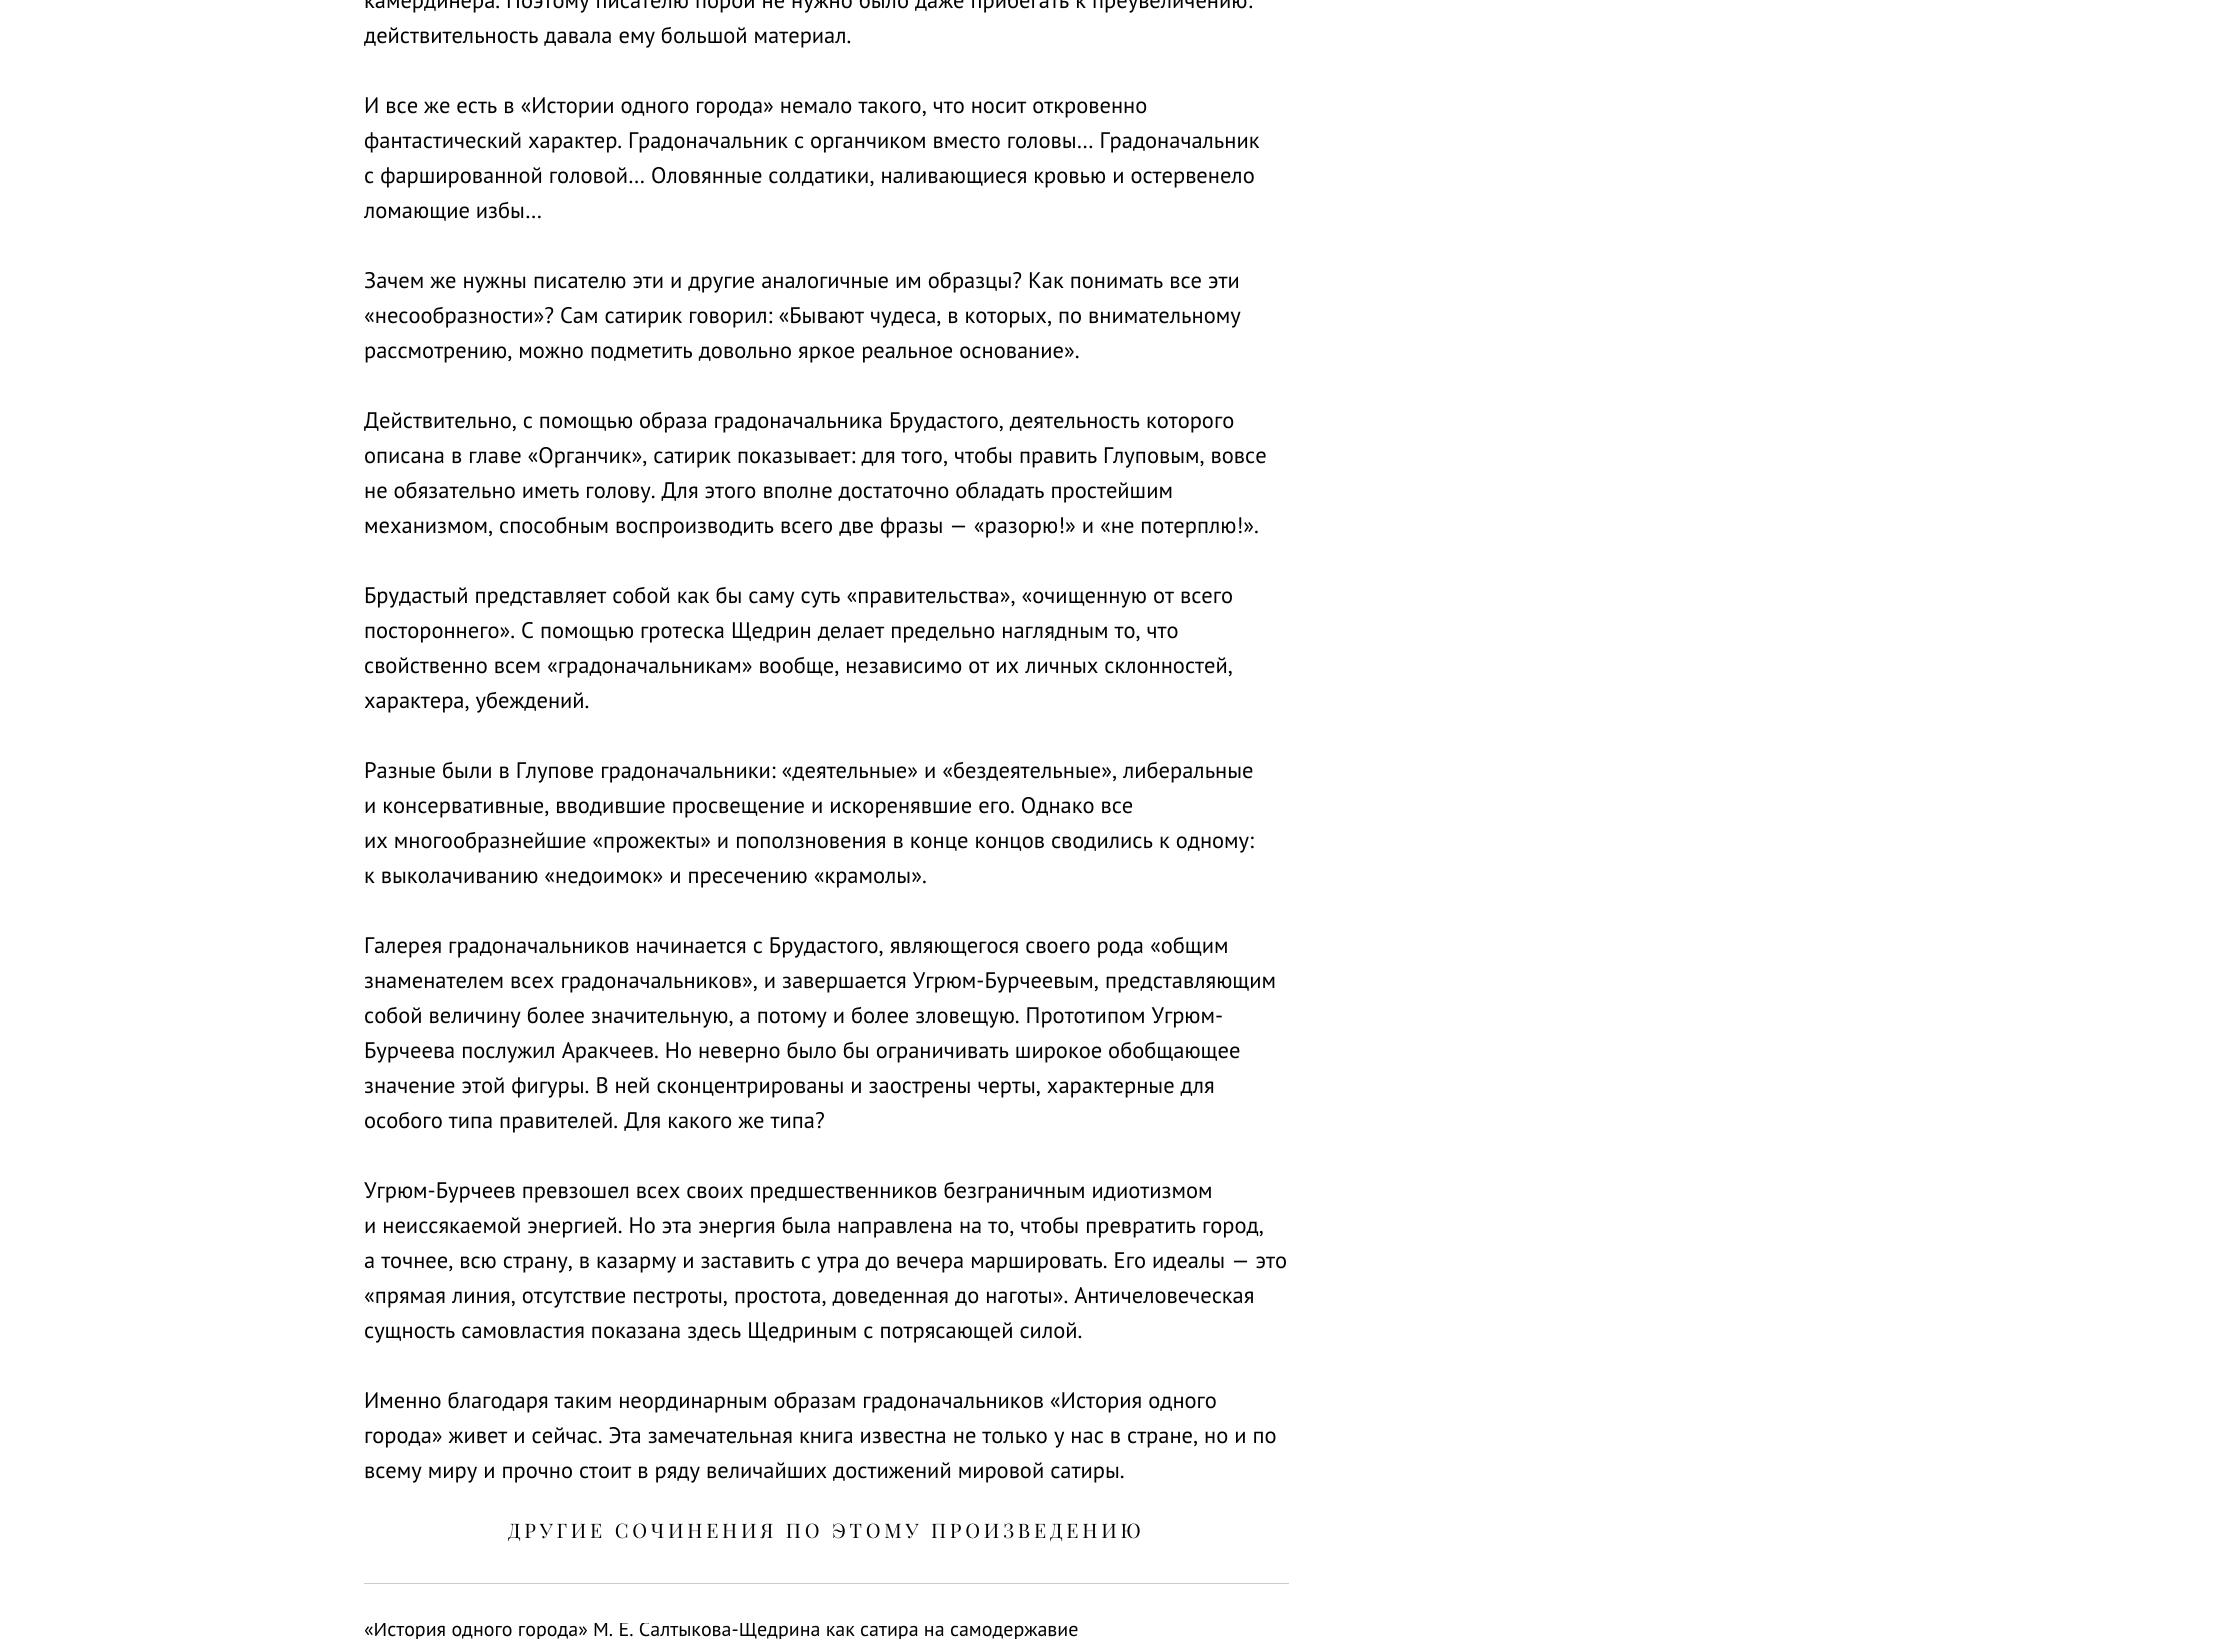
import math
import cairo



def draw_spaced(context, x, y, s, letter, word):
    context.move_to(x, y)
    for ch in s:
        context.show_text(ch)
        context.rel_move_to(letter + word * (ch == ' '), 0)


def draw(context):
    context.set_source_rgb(1, 1, 1)
    context.paint()
    context.set_source_rgb(204 / 255, 204 / 255, 204 / 255)
    context.rectangle(364, 1583, 925, 1)
    context.fill()
    context.select_font_face("PT Sans")
    context.set_font_size(22.5)
    context.set_source_rgb(0, 0, 0)
    context.move_to(364, 8)
    context.show_text("камердинера. Поэтому писателю порой не нужно было даже прибегать к преувеличению:")
    context.save()
    context.rectangle(364, 0, 1500, 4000)
    context.clip()
    context.move_to(364, 43)
    context.show_text("действительность давала ему большой материал.")
    context.restore()
    context.move_to(364, 113)
    context.show_text("И все же есть в «Истории одного города» немало такого, что носит откровенно")
    context.move_to(364, 148)
    context.show_text("фантастический характер. Градоначальник с органчиком вместо головы… Градоначальник")
    context.move_to(364, 183)
    context.show_text("с фаршированной головой… Оловянные солдатики, наливающиеся кровью и остервенело")
    context.move_to(364, 218)
    context.show_text("ломающие избы…")
    context.move_to(364, 288)
    context.show_text("Зачем же нужны писателю эти и другие аналогичные им образцы? Как понимать все эти")
    context.move_to(364, 323)
    context.show_text("«несообразности»? Сам сатирик говорил: «Бывают чудеса, в которых, по внимательному")
    context.move_to(364, 358)
    context.show_text("рассмотрению, можно подметить довольно яркое реальное основание».")
    context.save()
    context.rectangle(364, 0, 1500, 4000)
    context.clip()
    context.move_to(364, 428)
    context.show_text("Действительно, с помощью образа градоначальника Брудастого, деятельность которого")
    context.restore()
    context.move_to(364, 463)
    context.show_text("описана в главе «Органчик», сатирик показывает: для того, чтобы править Глуповым, вовсе")
    context.move_to(364, 498)
    context.show_text("не обязательно иметь голову. Для этого вполне достаточно обладать простейшим")
    context.move_to(364, 533)
    context.show_text("механизмом, способным воспроизводить всего две фразы — «разорю!» и «не потерплю!».")
    context.move_to(364, 603)
    context.show_text("Брудастый представляет собой как бы саму суть «правительства», «очищенную от всего")
    context.move_to(364, 638)
    context.show_text("постороннего». С помощью гротеска Щедрин делает предельно наглядным то, что")
    context.move_to(364, 673)
    context.show_text("свойственно всем «градоначальникам» вообще, независимо от их личных склонностей,")
    context.move_to(364, 708)
    context.show_text("характера, убеждений.")
    context.move_to(364, 778)
    context.show_text("Разные были в Глупове градоначальники: «деятельные» и «бездеятельные», либеральные")
    context.move_to(364, 813)
    context.show_text("и консервативные, вводившие просвещение и искоренявшие его. Однако все")
    context.move_to(364, 848)
    context.show_text("их многообразнейшие «прожекты» и поползновения в конце концов сводились к одному:")
    context.move_to(364, 883)
    context.show_text("к выколачиванию «недоимок» и пресечению «крамолы».")
    context.move_to(364, 953)
    context.show_text("Галерея градоначальников начинается с Брудастого, являющегося своего рода «общим")
    context.move_to(364, 988)
    context.show_text("знаменателем всех градоначальников», и завершается Угрюм-Бурчеевым, представляющим")
    context.move_to(364, 1023)
    context.show_text("собой величину более значительную, а потому и более зловещую. Прототипом Угрюм-")
    context.move_to(364, 1058)
    context.show_text("Бурчеева послужил Аракчеев. Но неверно было бы ограничивать широкое обобщающее")
    context.move_to(364, 1093)
    context.show_text("значение этой фигуры. В ней сконцентрированы и заострены черты, характерные для")
    context.move_to(364, 1128)
    context.show_text("особого типа правителей. Для какого же типа?")
    context.move_to(364, 1198)
    context.show_text("Угрюм-Бурчеев превзошел всех своих предшественников безграничным идиотизмом")
    context.move_to(364, 1233)
    context.show_text("и неиссякаемой энергией. Но эта энергия была направлена на то, чтобы превратить город,")
    context.move_to(364, 1268)
    context.show_text("а точнее, всю страну, в казарму и заставить с утра до вечера маршировать. Его идеалы — это")
    context.move_to(364, 1303)
    context.show_text("«прямая линия, отсутствие пестроты, простота, доведенная до наготы». Античеловеческая")
    context.move_to(364, 1338)
    context.show_text("сущность самовластия показана здесь Щедриным с потрясающей силой.")
    context.move_to(364, 1408)
    context.show_text("Именно благодаря таким неординарным образам градоначальников «История одного")
    context.move_to(364, 1443)
    context.show_text("города» живет и сейчас. Эта замечательная книга известна не только у нас в стране, но и по")
    context.move_to(364, 1478)
    context.show_text("всему миру и прочно стоит в ряду величайших достижений мировой сатиры.")
    context.select_font_face("Playfair Display")
    context.set_font_size(20)
    draw_spaced(context, 508, 1538, "ДРУГИЕ СОЧИНЕНИЯ ПО ЭТОМУ ПРОИЗВЕДЕНИЮ", 3.75, 0)
    context.save()
    context.rectangle(364, 1623, 714, 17)
    context.clip()
    context.select_font_face("PT Sans")
    context.move_to(364, 1636)
    context.show_text("«История одного города» М. Е. Салтыкова-Щедрина как сатира на самодержавие")
    context.restore()


surface = cairo.ImageSurface(cairo.Format.RGB24, 2227, 1639)
context = cairo.Context(surface)
options = cairo.FontOptions()
options.set_hint_metrics(cairo.HintMetrics.OFF)
options.set_hint_style(cairo.HintStyle.NONE)
context.set_font_options(options)
context.set_miter_limit(4)
draw(context)
surface.write_to_png("out.png")
